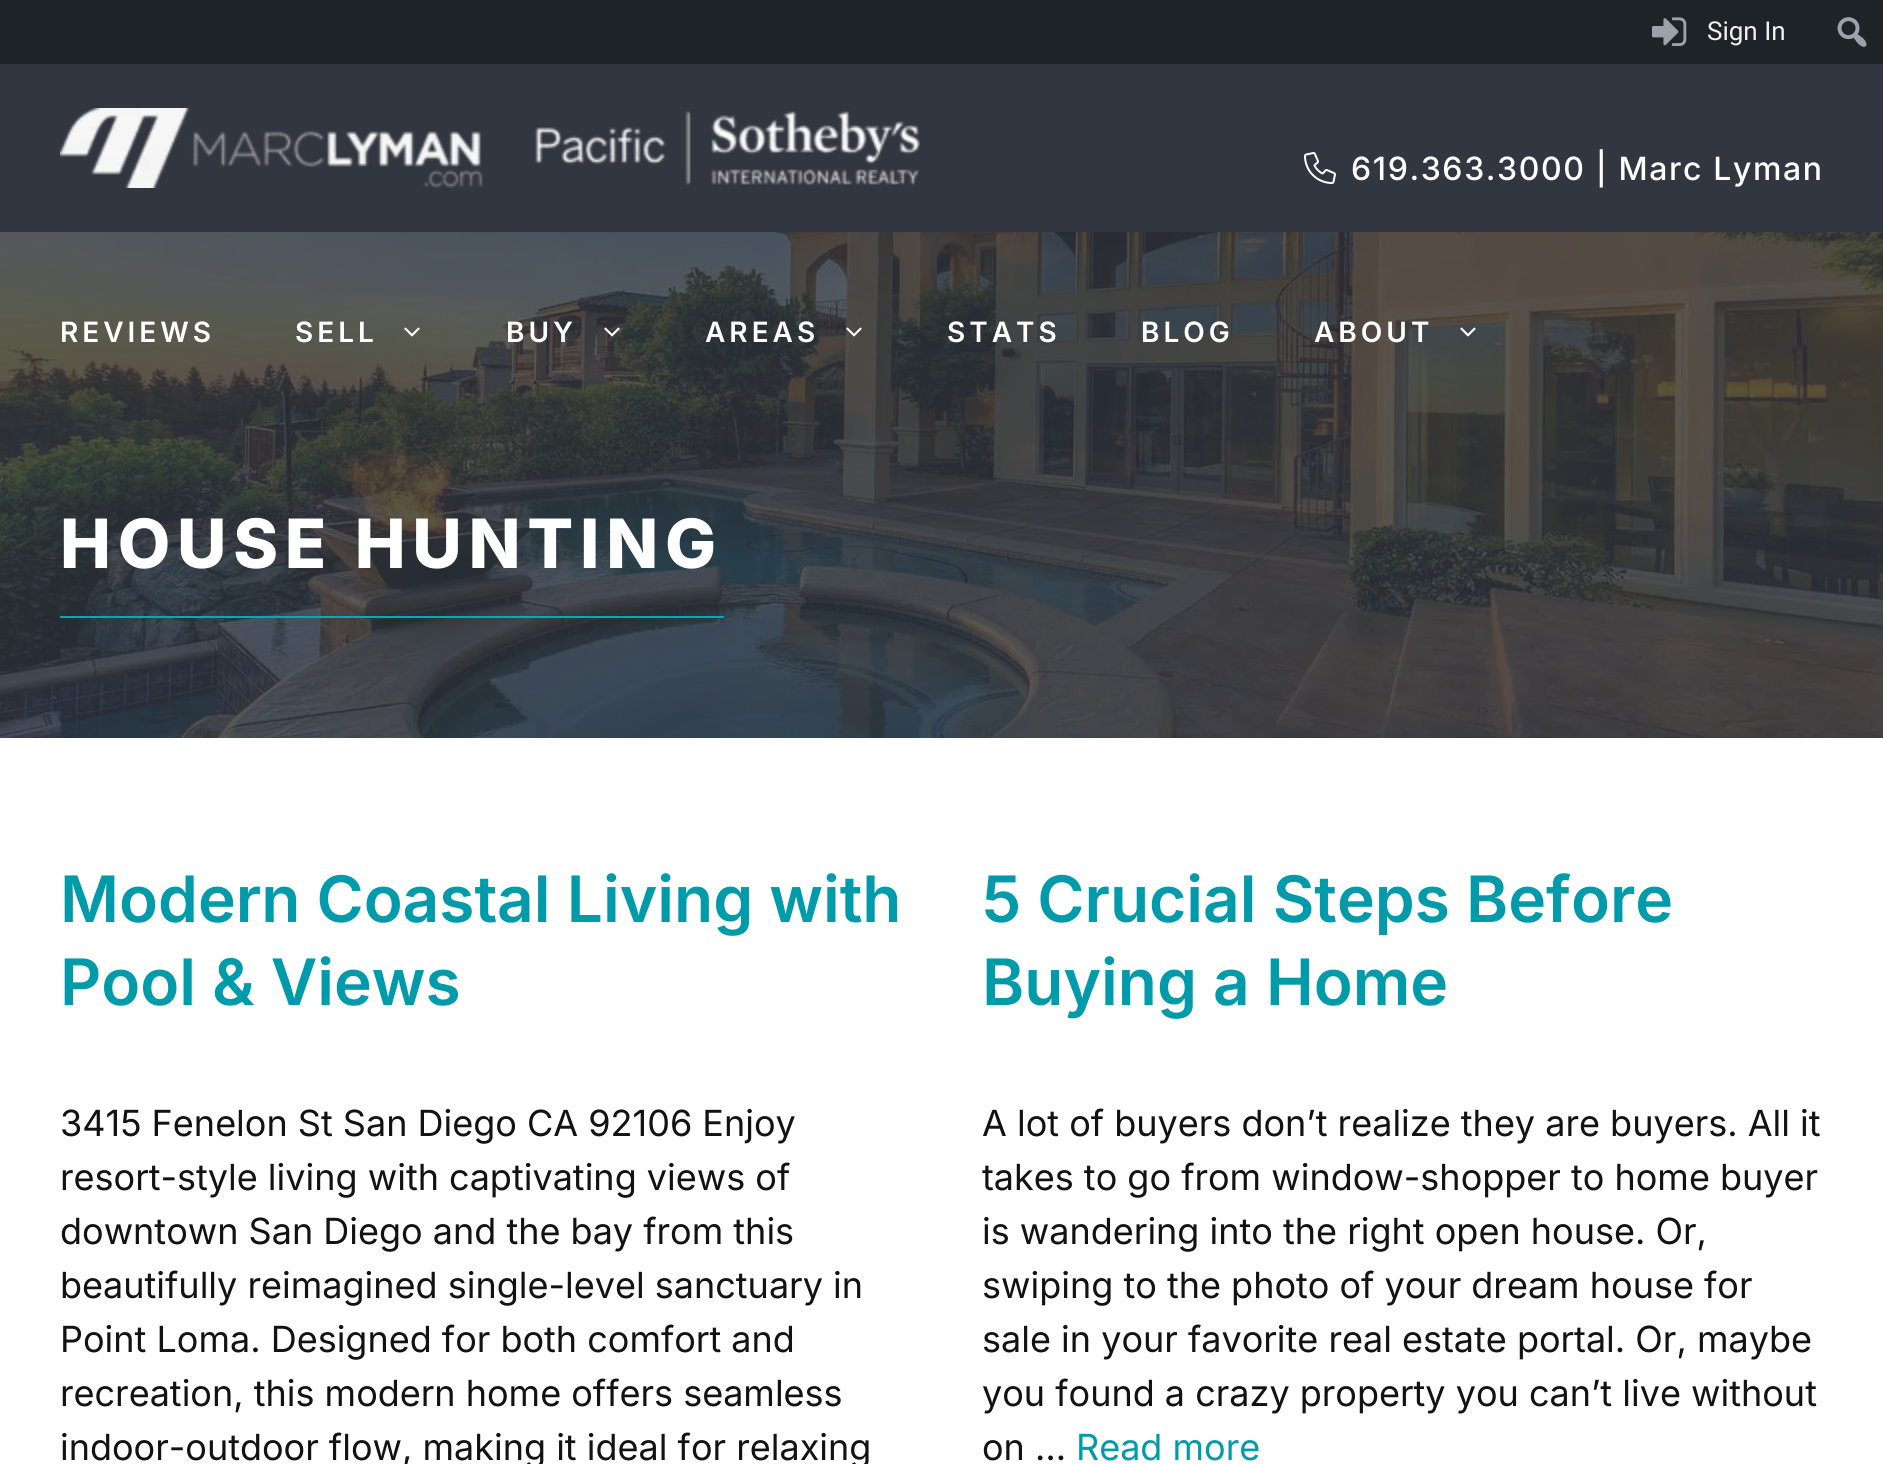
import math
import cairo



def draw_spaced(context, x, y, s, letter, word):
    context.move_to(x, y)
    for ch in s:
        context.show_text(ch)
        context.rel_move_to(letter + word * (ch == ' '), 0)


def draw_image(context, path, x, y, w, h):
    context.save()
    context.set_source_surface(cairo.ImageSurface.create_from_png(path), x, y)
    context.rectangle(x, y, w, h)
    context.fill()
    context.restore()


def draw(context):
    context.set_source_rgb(1, 1, 1)
    context.paint()
    context.set_source_rgb(29 / 255, 35 / 255, 39 / 255)
    context.rectangle(0, 0, 1883, 64)
    context.fill()
    draw_image(context, "images/1.png", 1652, 17, 35, 29)
    draw_image(context, "images/2.png", 1837, 17, 30, 30)
    context.set_source_rgb(49 / 255, 54 / 255, 64 / 255)
    context.rectangle(0, 64, 1883, 674)
    context.fill()
    draw_image(context, "images/3.png", 60, 108, 860, 80)
    draw_image(context, "images/4.png", 1304, 152, 32, 32)
    draw_image(context, "images/9.png", 0, 232, 1883, 506)
    draw_image(context, "images/5.png", 404, 327, 16, 10)
    draw_image(context, "images/6.png", 604, 327, 16, 10)
    draw_image(context, "images/7.png", 846, 327, 16, 10)
    draw_image(context, "images/8.png", 1460, 327, 16, 10)
    context.set_source_rgb(0, 171 / 255, 187 / 255)
    context.rectangle(60, 616, 664, 2)
    context.fill()
    context.select_font_face("Roboto")
    context.set_font_size(26)
    context.set_source_rgb(240 / 255, 240 / 255, 241 / 255)
    context.move_to(1707, 40)
    context.show_text("Sign In")
    context.select_font_face("Inter Medium")
    context.set_font_size(32)
    context.set_source_rgb(1, 1, 1)
    draw_spaced(context, 1351, 180, "619.363.3000 | Marc Lyman", 1.6, 0)
    context.select_font_face("Inter SemiBold")
    context.set_font_size(28)
    draw_spaced(context, 60, 342, "REVIEWS", 4, 0)
    draw_spaced(context, 295, 342, "SELL", 4, 0)
    draw_spaced(context, 506, 342, "BUY", 4, 0)
    draw_spaced(context, 705, 342, "AREAS", 4, 0)
    draw_spaced(context, 947, 342, "STATS", 4, 0)
    draw_spaced(context, 1141, 342, "BLOG", 4, 0)
    draw_spaced(context, 1314, 342, "ABOUT", 4, 0)
    context.select_font_face("Inter ExtraBold")
    context.set_font_size(68)
    draw_spaced(context, 60, 568, "HOUSE HUNTING", 6.75, 0)
    context.select_font_face("Inter SemiBold")
    context.set_font_size(64)
    context.set_source_rgb(0, 155 / 255, 170 / 255)
    context.move_to(60, 922)
    context.show_text("Modern Coastal Living with")
    context.move_to(60, 1005)
    context.show_text("Pool & Views")
    context.select_font_face("Inter")
    context.set_font_size(36)
    context.set_source_rgb(18 / 255, 18 / 255, 18 / 255)
    context.move_to(60, 1136)
    context.show_text("3415 Fenelon St San Diego CA 92106 Enjoy")
    context.move_to(60, 1190)
    context.show_text("resort-style living with captivating views of")
    context.move_to(60, 1244)
    context.show_text("downtown San Diego and the bay from this")
    context.move_to(60, 1298)
    context.show_text("beautifully reimagined single-level sanctuary in")
    context.move_to(60, 1352)
    context.show_text("Point Loma. Designed for both comfort and")
    context.move_to(60, 1406)
    context.show_text("recreation, this modern home offers seamless")
    context.move_to(60, 1460)
    context.show_text("indoor-outdoor flow, making it ideal for relaxing")
    context.select_font_face("Inter SemiBold")
    context.set_font_size(64)
    context.set_source_rgb(0, 155 / 255, 170 / 255)
    context.move_to(982, 922)
    context.show_text("5 Crucial Steps Before")
    context.move_to(982, 1005)
    context.show_text("Buying a Home")
    context.select_font_face("Inter")
    context.set_font_size(36)
    context.set_source_rgb(18 / 255, 18 / 255, 18 / 255)
    context.move_to(982, 1136)
    context.show_text("A lot of buyers don’t realize they are buyers. All it")
    context.move_to(982, 1190)
    context.show_text("takes to go from window-shopper to home buyer")
    context.move_to(982, 1244)
    context.show_text("is wandering into the right open house. Or,")
    context.move_to(982, 1298)
    context.show_text("swiping to the photo of your dream house for")
    context.move_to(982, 1352)
    context.show_text("sale in your favorite real estate portal. Or, maybe")
    context.move_to(982, 1406)
    context.show_text("you found a crazy property you can’t live without")
    context.move_to(982, 1460)
    context.show_text("on …")
    context.set_source_rgb(0, 155 / 255, 170 / 255)
    context.move_to(1076, 1460)
    context.show_text("Read more")


surface = cairo.ImageSurface(cairo.Format.RGB24, 1883, 1464)
context = cairo.Context(surface)
options = cairo.FontOptions()
options.set_hint_metrics(cairo.HintMetrics.OFF)
options.set_hint_style(cairo.HintStyle.NONE)
context.set_font_options(options)
context.set_miter_limit(4)
draw(context)
surface.write_to_png("out.png")
